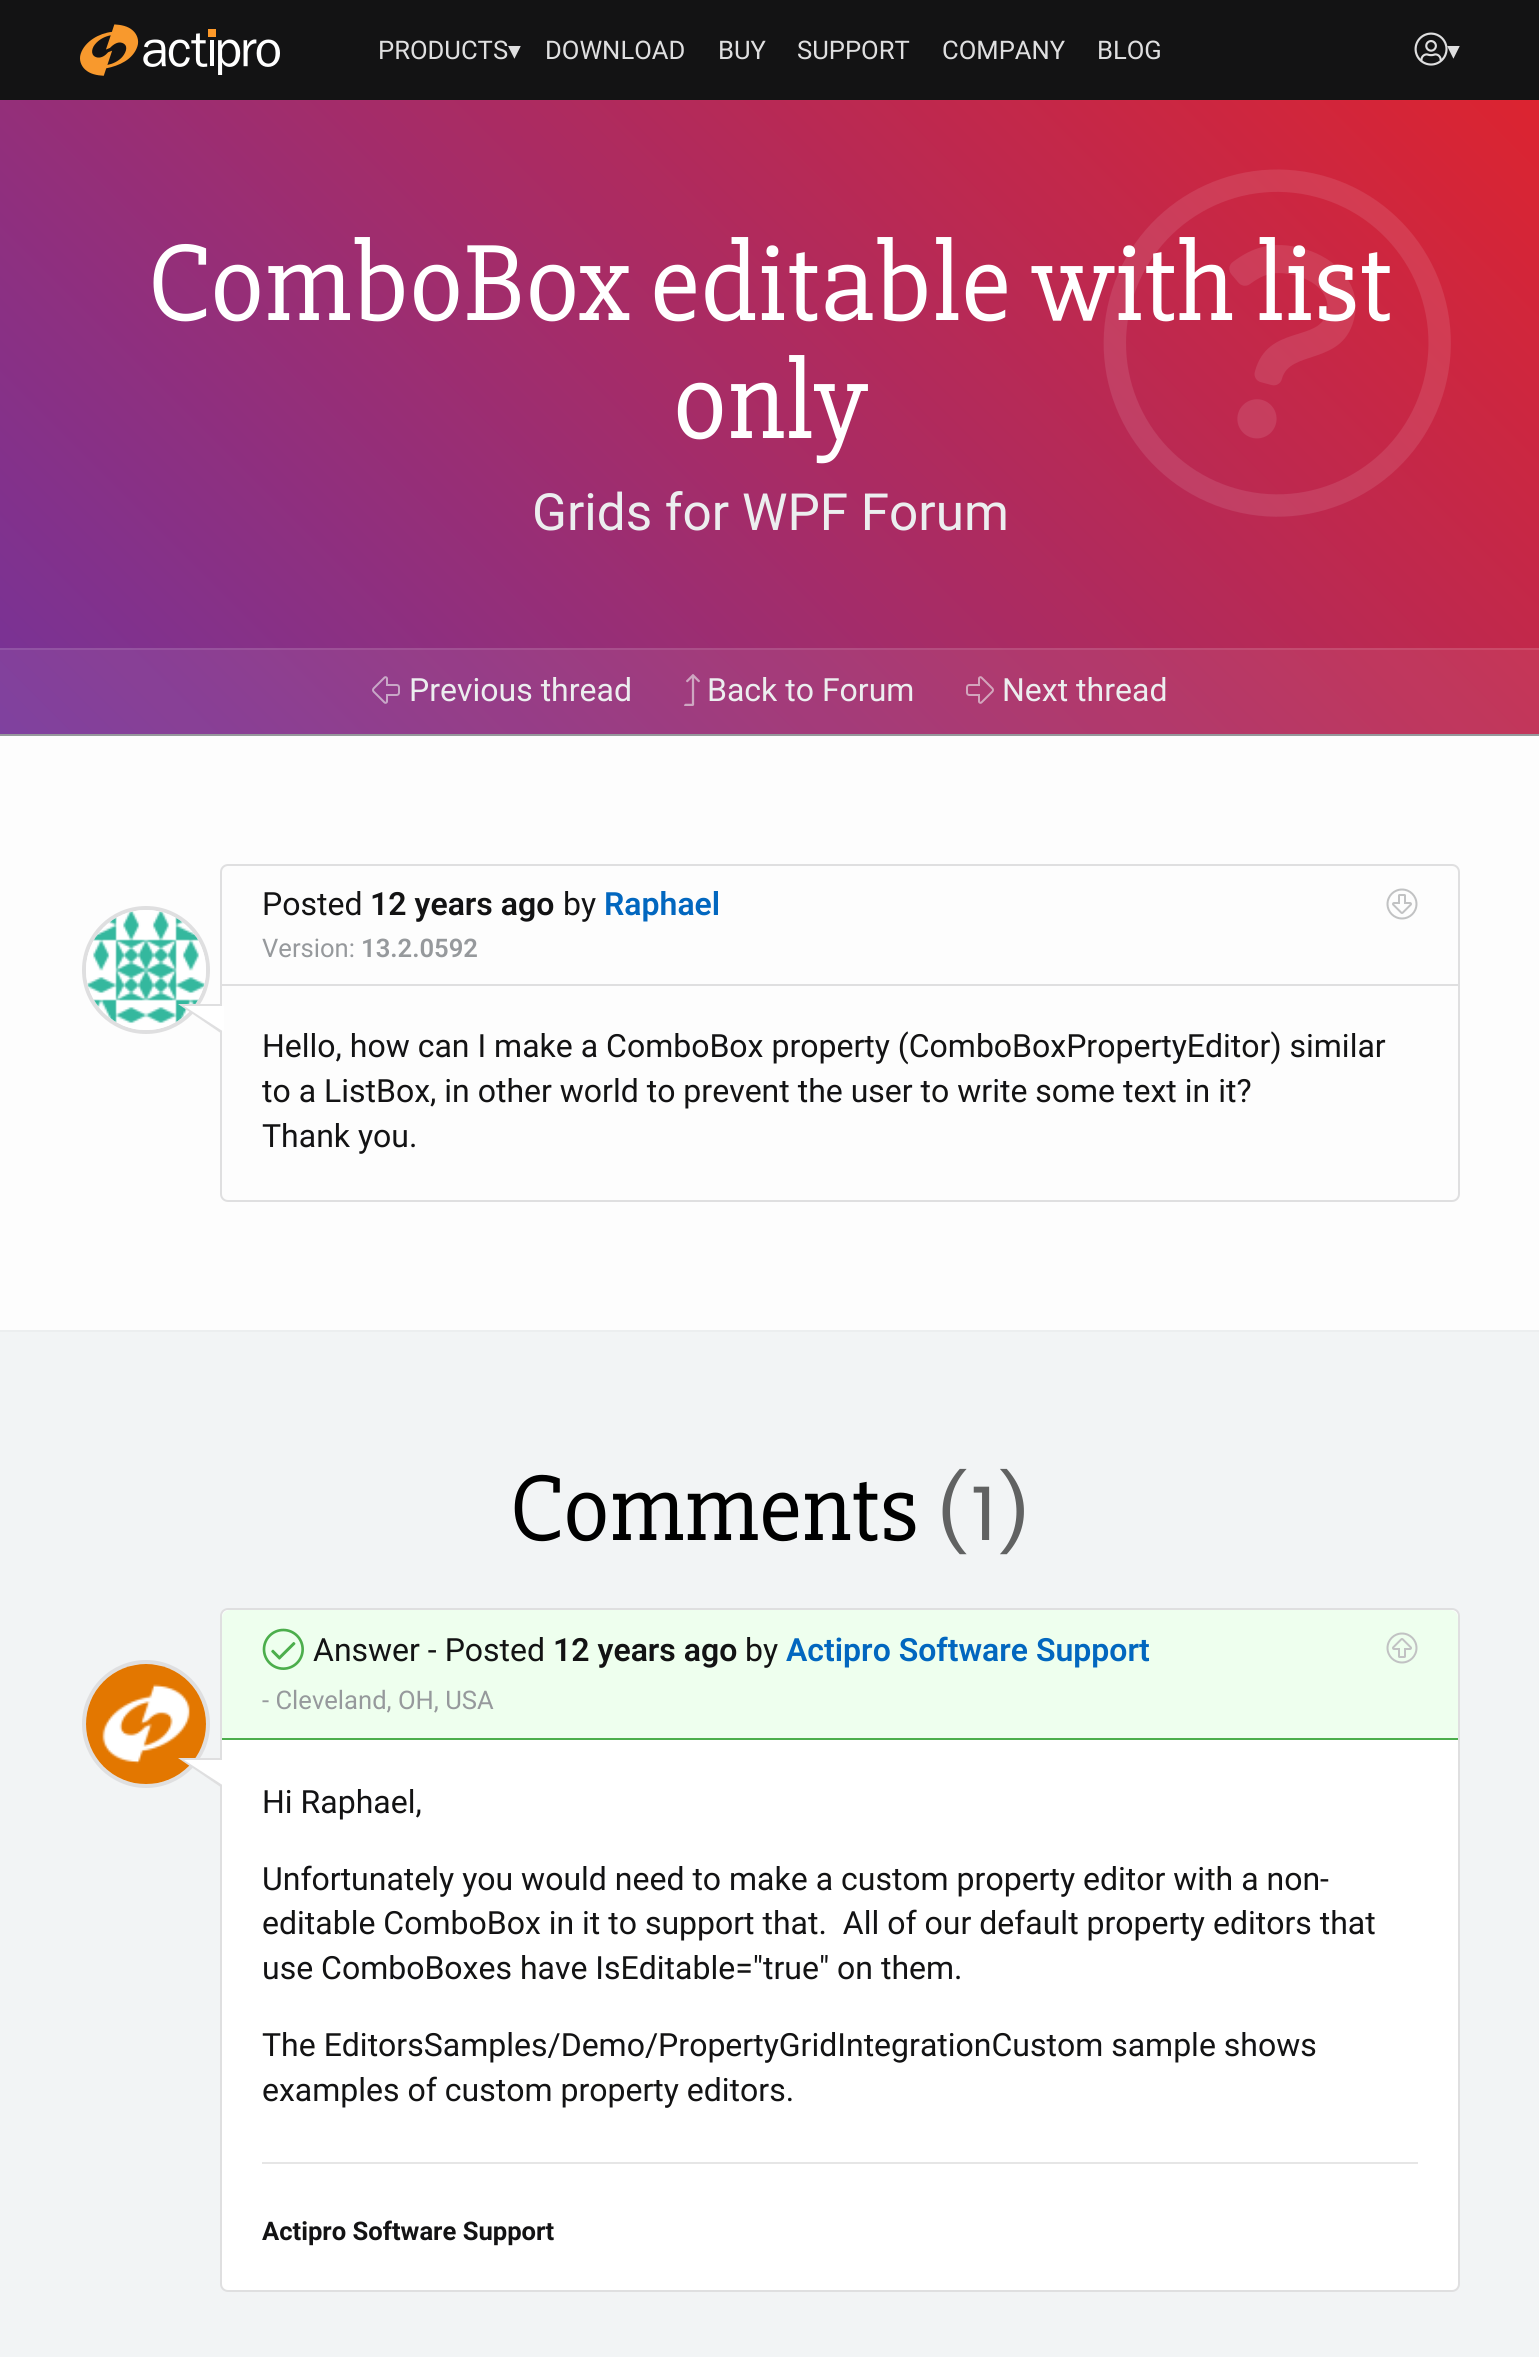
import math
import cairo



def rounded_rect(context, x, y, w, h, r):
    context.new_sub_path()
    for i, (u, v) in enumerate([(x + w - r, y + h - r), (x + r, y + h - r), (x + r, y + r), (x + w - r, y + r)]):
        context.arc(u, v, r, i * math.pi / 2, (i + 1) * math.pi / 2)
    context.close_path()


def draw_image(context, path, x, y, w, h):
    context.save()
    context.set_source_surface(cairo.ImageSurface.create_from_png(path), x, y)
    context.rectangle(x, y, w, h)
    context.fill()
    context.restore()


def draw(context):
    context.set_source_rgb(19 / 255, 19 / 255, 20 / 255)
    context.paint()
    draw_image(context, "images/1.png", 80, 24, 200, 52)
    gradient = cairo.LinearGradient(227, 961, 1314, -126)
    gradient.add_color_stop_rgba(0, 118 / 255, 51 / 255, 152 / 255, 1)
    gradient.add_color_stop_rgba(1, 220 / 255, 36 / 255, 48 / 255, 1)
    context.set_source(gradient)
    context.rectangle(0, 100, 1539, 634)
    context.fill()
    context.set_source_rgb(150 / 255, 153 / 255, 156 / 255)
    context.rectangle(0, 734, 1539, 2)
    context.fill()
    context.set_source_rgba(1, 1, 1, 0.07)
    context.rectangle(0, 648, 1539, 86)
    context.fill()
    context.set_source_rgba(1, 1, 1, 0.1)
    context.rectangle(0, 648, 1539, 2)
    context.fill()
    draw_image(context, "images/4.png", 372, 676, 28, 28)
    draw_image(context, "images/5.png", 684, 674, 16, 32)
    draw_image(context, "images/6.png", 966, 676, 28, 28)
    context.set_source_rgb(253 / 255, 253 / 255, 253 / 255)
    context.rectangle(0, 736, 1539, 594)
    context.fill()
    rounded_rect(context, 221, 865, 1238, 336, 7)
    context.set_source_rgb(223 / 255, 223 / 255, 224 / 255)
    context.stroke()
    context.rectangle(222, 984, 1236, 2)
    context.fill()
    draw_image(context, "images/7.png", 1386, 888, 32, 32)
    context.arc(146, 970, 62, 0, 2 * math.pi)
    context.set_line_width(4)
    context.stroke()
    draw_image(context, "images/8.png", 86, 910, 120, 120)
    context.new_path()
    context.move_to(222, 1004)
    context.line_to(222, 1034)
    context.line_to(178, 1004)
    context.close_path()
    context.fill()
    context.set_source_rgb(1, 1, 1)
    context.new_path()
    context.move_to(224, 1006)
    context.line_to(224, 1032)
    context.line_to(184, 1006)
    context.close_path()
    context.fill()
    context.set_source_rgb(242 / 255, 244 / 255, 245 / 255)
    context.rectangle(0, 1332, 1539, 1025)
    context.fill()
    context.set_source_rgb(236 / 255, 238 / 255, 239 / 255)
    context.rectangle(0, 1330, 1539, 2)
    context.fill()
    context.set_source_rgb(1, 1, 1)
    rounded_rect(context, 221, 1609, 1238, 682, 7)
    context.fill_preserve()
    context.set_source_rgb(223 / 255, 223 / 255, 224 / 255)
    context.set_line_width(2)
    context.stroke()
    context.set_source_rgb(238 / 255, 1, 238 / 255)
    context.new_path()
    context.move_to(230, 1610)
    context.line_to(1450, 1610)
    context.curve_to(1454.5, 1610, 1458, 1613.5, 1458, 1618)
    context.line_to(1458, 1740)
    context.line_to(222, 1740)
    context.line_to(222, 1618)
    context.curve_to(222, 1613.5, 225.5, 1610, 230, 1610)
    context.close_path()
    context.fill()
    context.set_source_rgb(76 / 255, 174 / 255, 76 / 255)
    context.rectangle(222, 1738, 1236, 2)
    context.fill()
    draw_image(context, "images/9.png", 262, 1628, 42, 42)
    draw_image(context, "images/10.png", 1386, 1632, 32, 32)
    context.arc(146, 1724, 62, 0, 2 * math.pi)
    context.set_source_rgb(223 / 255, 223 / 255, 224 / 255)
    context.set_line_width(4)
    context.stroke()
    draw_image(context, "images/11.png", 86, 1664, 120, 120)
    context.new_path()
    context.move_to(222, 1758)
    context.line_to(222, 1788)
    context.line_to(178, 1758)
    context.close_path()
    context.fill()
    context.set_source_rgb(1, 1, 1)
    context.new_path()
    context.move_to(224, 1760)
    context.line_to(224, 1786)
    context.line_to(184, 1760)
    context.close_path()
    context.fill()
    context.set_source_rgb(230 / 255, 230 / 255, 230 / 255)
    context.rectangle(262, 2162, 1156, 2)
    context.fill()
    context.select_font_face("Roboto")
    context.set_font_size(25.6)
    context.set_source_rgb(223 / 255, 223 / 255, 224 / 255)
    context.move_to(378, 59)
    context.show_text("PRODUCTS")
    context.select_font_face("DejaVu Sans")
    context.move_to(508, 59)
    context.show_text("▾")
    context.select_font_face("Roboto")
    context.move_to(545, 59)
    context.show_text("DOWNLOAD")
    context.move_to(718, 59)
    context.show_text("BUY")
    context.move_to(797, 59)
    context.show_text("SUPPORT")
    context.move_to(942, 59)
    context.show_text("COMPANY")
    context.move_to(1097, 59)
    context.show_text("BLOG")
    context.select_font_face("DejaVu Sans")
    context.move_to(1447, 59)
    context.show_text("▾")
    draw_image(context, "images/2.png", 1414, 32, 34, 34)
    context.select_font_face("Slabo 27px")
    context.set_font_size(112)
    context.set_source_rgb(1, 1, 1)
    context.move_to(148, 320)
    context.show_text("ComboBox editable with list")
    draw_image(context, "images/3.png", 1103, 169, 348, 348)
    context.move_to(673, 438)
    context.show_text("only")
    context.select_font_face("Roboto")
    context.set_font_size(51.25)
    context.set_source_rgb(236 / 255, 238 / 255, 239 / 255)
    context.move_to(532, 530)
    context.show_text("Grids for WPF Forum")
    context.set_font_size(32)
    context.move_to(409, 701)
    context.show_text("Previous thread")
    context.move_to(707, 701)
    context.show_text("Back to Forum")
    context.move_to(1002, 701)
    context.show_text("Next thread")
    context.set_source_rgb(19 / 255, 19 / 255, 20 / 255)
    context.move_to(262, 915)
    context.show_text("Posted")
    context.select_font_face("Roboto SemiBold")
    context.move_to(370, 915)
    context.show_text("12 years ago")
    context.select_font_face("Roboto")
    context.move_to(563, 915)
    context.show_text("by")
    context.select_font_face("Roboto SemiBold")
    context.set_source_rgb(2 / 255, 103 / 255, 191 / 255)
    context.move_to(604, 915)
    context.show_text("Raphael")
    context.select_font_face("Roboto")
    context.set_font_size(25.6)
    context.set_source_rgb(150 / 255, 153 / 255, 156 / 255)
    context.move_to(262, 957)
    context.show_text("Version:")
    context.select_font_face("Roboto SemiBold")
    context.move_to(361, 957)
    context.show_text("13.2.0592")
    context.select_font_face("Roboto")
    context.set_font_size(32)
    context.set_source_rgb(19 / 255, 19 / 255, 20 / 255)
    context.move_to(262, 1057)
    context.show_text("Hello, how can I make a ComboBox property (ComboBoxPropertyEditor) similar")
    context.move_to(262, 1102)
    context.show_text("to a ListBox, in other world to prevent the user to write some text in it?")
    context.move_to(262, 1147)
    context.show_text("Thank you.")
    context.select_font_face("Slabo 27px")
    context.set_font_size(96)
    context.set_source_rgb(0, 0, 0)
    context.move_to(510, 1540)
    context.show_text("Comments")
    context.set_source_rgb(97 / 255, 98 / 255, 98 / 255)
    context.move_to(937, 1540)
    context.show_text("(1)")
    context.select_font_face("Roboto")
    context.set_font_size(32)
    context.set_source_rgb(19 / 255, 19 / 255, 20 / 255)
    context.move_to(313, 1661)
    context.show_text("Answer - Posted")
    context.select_font_face("Roboto SemiBold")
    context.move_to(553, 1661)
    context.show_text("12 years ago")
    context.select_font_face("Roboto")
    context.move_to(745, 1661)
    context.show_text("by")
    context.select_font_face("Roboto SemiBold")
    context.set_source_rgb(2 / 255, 103 / 255, 191 / 255)
    context.move_to(786, 1661)
    context.show_text("Actipro Software Support")
    context.select_font_face("Roboto")
    context.set_font_size(25.6)
    context.set_source_rgb(150 / 255, 153 / 255, 156 / 255)
    context.move_to(262, 1709)
    context.show_text("- Cleveland, OH, USA")
    context.set_font_size(32)
    context.set_source_rgb(19 / 255, 19 / 255, 20 / 255)
    context.move_to(262, 1813)
    context.show_text("Hi Raphael,")
    context.move_to(262, 1890)
    context.show_text("Unfortunately you would need to make a custom property editor with a non-")
    context.move_to(262, 1934)
    context.show_text("editable ComboBox in it to support that.  All of our default property editors that")
    context.move_to(262, 1979)
    context.show_text("use ComboBoxes have IsEditable=\"true\" on them.")
    context.move_to(262, 2056)
    context.show_text("The EditorsSamples/Demo/PropertyGridIntegrationCustom sample shows")
    context.move_to(262, 2101)
    context.show_text("examples of custom property editors.")
    context.select_font_face("Roboto", cairo.FontSlant.NORMAL, cairo.FontWeight.BOLD)
    context.set_font_size(25.6)
    context.move_to(262, 2240)
    context.show_text("Actipro Software Support")


surface = cairo.ImageSurface(cairo.Format.RGB24, 1539, 2357)
context = cairo.Context(surface)
options = cairo.FontOptions()
options.set_hint_metrics(cairo.HintMetrics.OFF)
options.set_hint_style(cairo.HintStyle.NONE)
context.set_font_options(options)
context.set_miter_limit(4)
draw(context)
surface.write_to_png("out.png")
